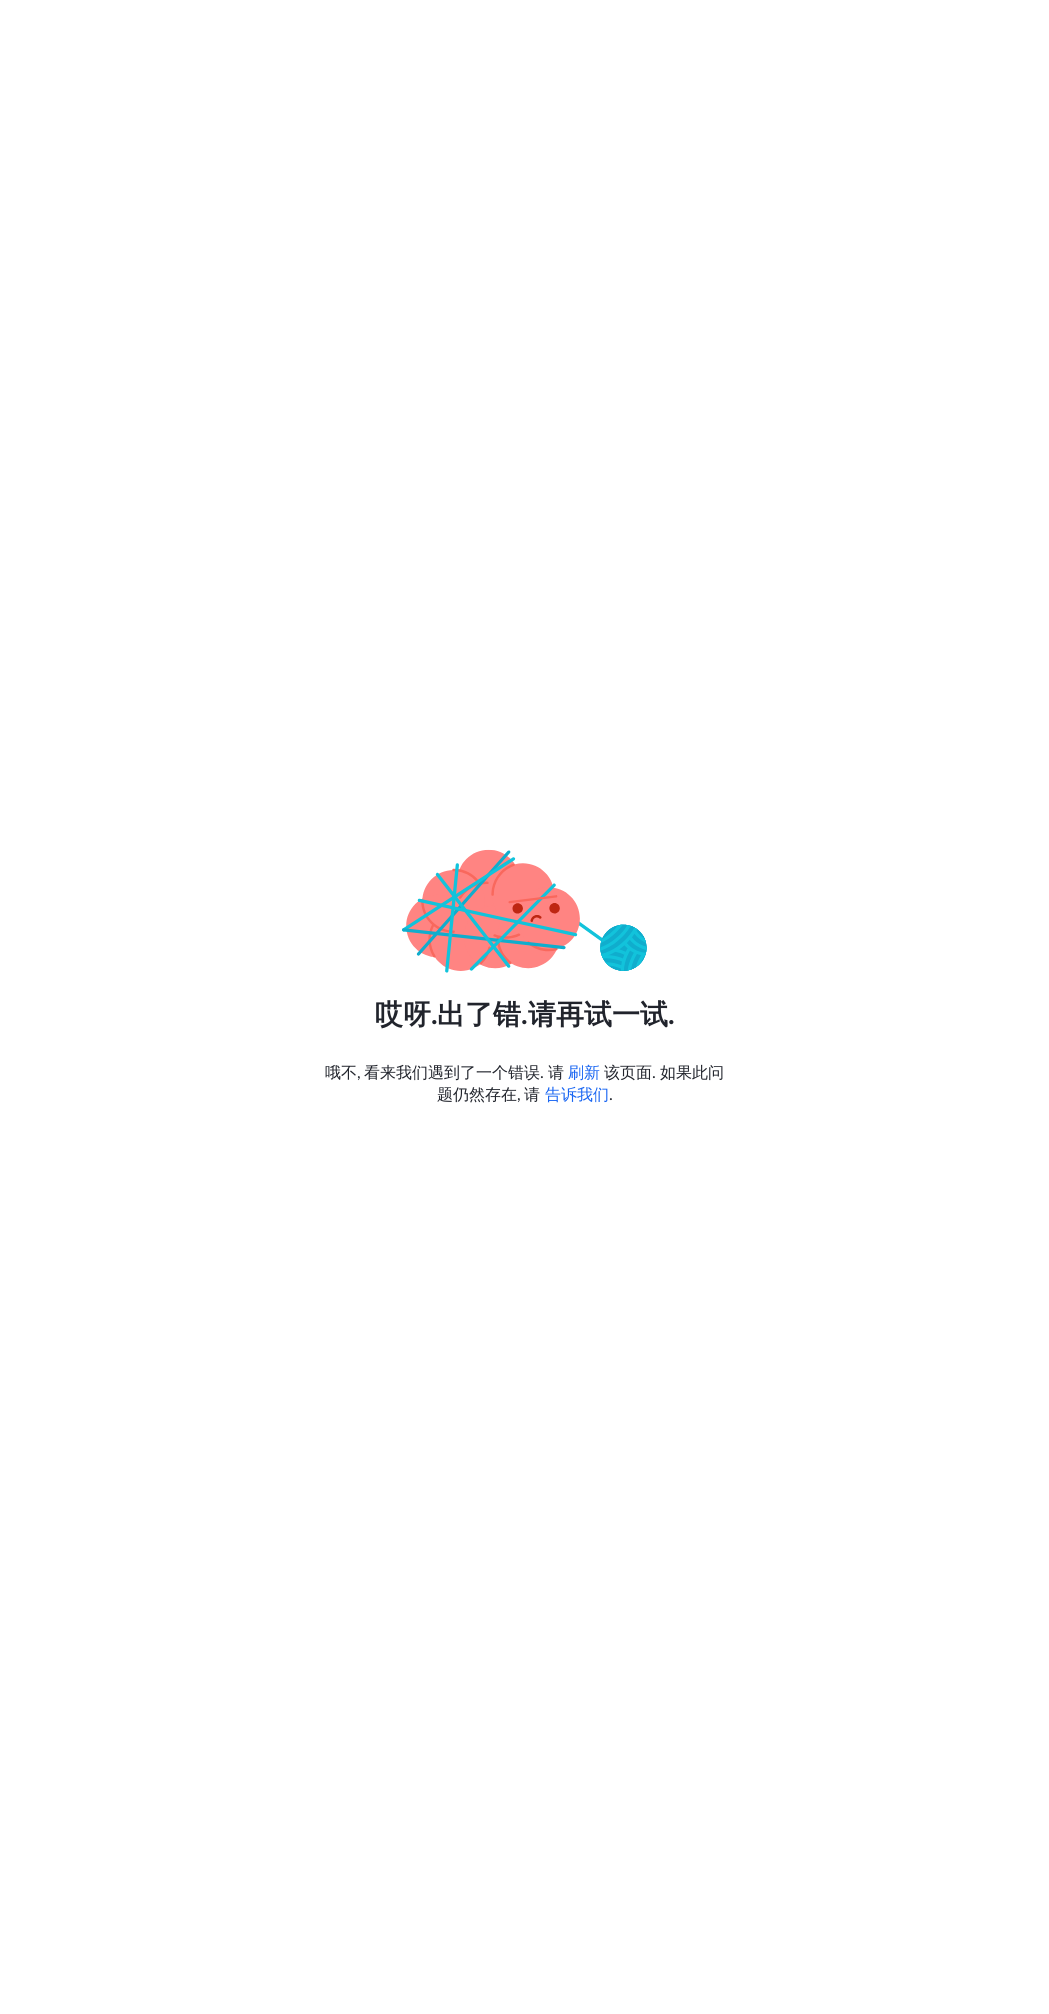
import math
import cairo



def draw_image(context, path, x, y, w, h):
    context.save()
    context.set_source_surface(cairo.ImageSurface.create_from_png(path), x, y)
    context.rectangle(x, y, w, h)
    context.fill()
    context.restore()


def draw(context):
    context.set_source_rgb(1, 1, 1)
    context.paint()
    draw_image(context, "images/1.png", 402, 849, 245, 124)
    context.select_font_face("WenQuanYi Zen Hei", cairo.FontSlant.NORMAL, cairo.FontWeight.BOLD)
    context.set_font_size(28)
    context.set_source_rgb(33 / 255, 36 / 255, 44 / 255)
    context.move_to(375, 1024)
    context.show_text("哎呀")
    context.select_font_face("Lato", cairo.FontSlant.NORMAL, cairo.FontWeight.BOLD)
    context.move_to(431, 1024)
    context.show_text(".")
    context.select_font_face("WenQuanYi Zen Hei", cairo.FontSlant.NORMAL, cairo.FontWeight.BOLD)
    context.move_to(437, 1024)
    context.show_text("出了错")
    context.select_font_face("Lato", cairo.FontSlant.NORMAL, cairo.FontWeight.BOLD)
    context.move_to(521, 1024)
    context.show_text(".")
    context.select_font_face("WenQuanYi Zen Hei", cairo.FontSlant.NORMAL, cairo.FontWeight.BOLD)
    context.move_to(528, 1024)
    context.show_text("请再试一试")
    context.select_font_face("Lato", cairo.FontSlant.NORMAL, cairo.FontWeight.BOLD)
    context.move_to(668, 1024)
    context.show_text(".")
    context.select_font_face("WenQuanYi Zen Hei Medium")
    context.set_font_size(16)
    context.move_to(325, 1078)
    context.show_text("哦不")
    context.select_font_face("Lato")
    context.move_to(357, 1078)
    context.show_text(",")
    context.select_font_face("WenQuanYi Zen Hei Medium")
    context.move_to(364, 1078)
    context.show_text("看来我们遇到了一个错误")
    context.select_font_face("Lato")
    context.move_to(540, 1078)
    context.show_text(".")
    context.select_font_face("WenQuanYi Zen Hei Medium")
    context.move_to(548, 1078)
    context.show_text("请")
    context.set_source_rgb(24 / 255, 101 / 255, 242 / 255)
    context.move_to(568, 1078)
    context.show_text("刷新")
    context.set_source_rgb(33 / 255, 36 / 255, 44 / 255)
    context.move_to(604, 1078)
    context.show_text("该页面")
    context.select_font_face("Lato")
    context.move_to(652, 1078)
    context.show_text(".")
    context.select_font_face("WenQuanYi Zen Hei Medium")
    context.move_to(660, 1078)
    context.show_text("如果此问")
    context.move_to(437, 1100)
    context.show_text("题仍然存在")
    context.select_font_face("Lato")
    context.move_to(517, 1100)
    context.show_text(",")
    context.select_font_face("WenQuanYi Zen Hei Medium")
    context.move_to(524, 1100)
    context.show_text("请")
    context.set_source_rgb(24 / 255, 101 / 255, 242 / 255)
    context.move_to(545, 1100)
    context.show_text("告诉我们")
    context.select_font_face("Lato")
    context.set_source_rgb(33 / 255, 36 / 255, 44 / 255)
    context.move_to(609, 1100)
    context.show_text(".")


surface = cairo.ImageSurface(cairo.Format.RGB24, 1049, 2014)
context = cairo.Context(surface)
options = cairo.FontOptions()
options.set_hint_metrics(cairo.HintMetrics.OFF)
options.set_hint_style(cairo.HintStyle.NONE)
context.set_font_options(options)
context.set_miter_limit(4)
draw(context)
surface.write_to_png("out.png")
